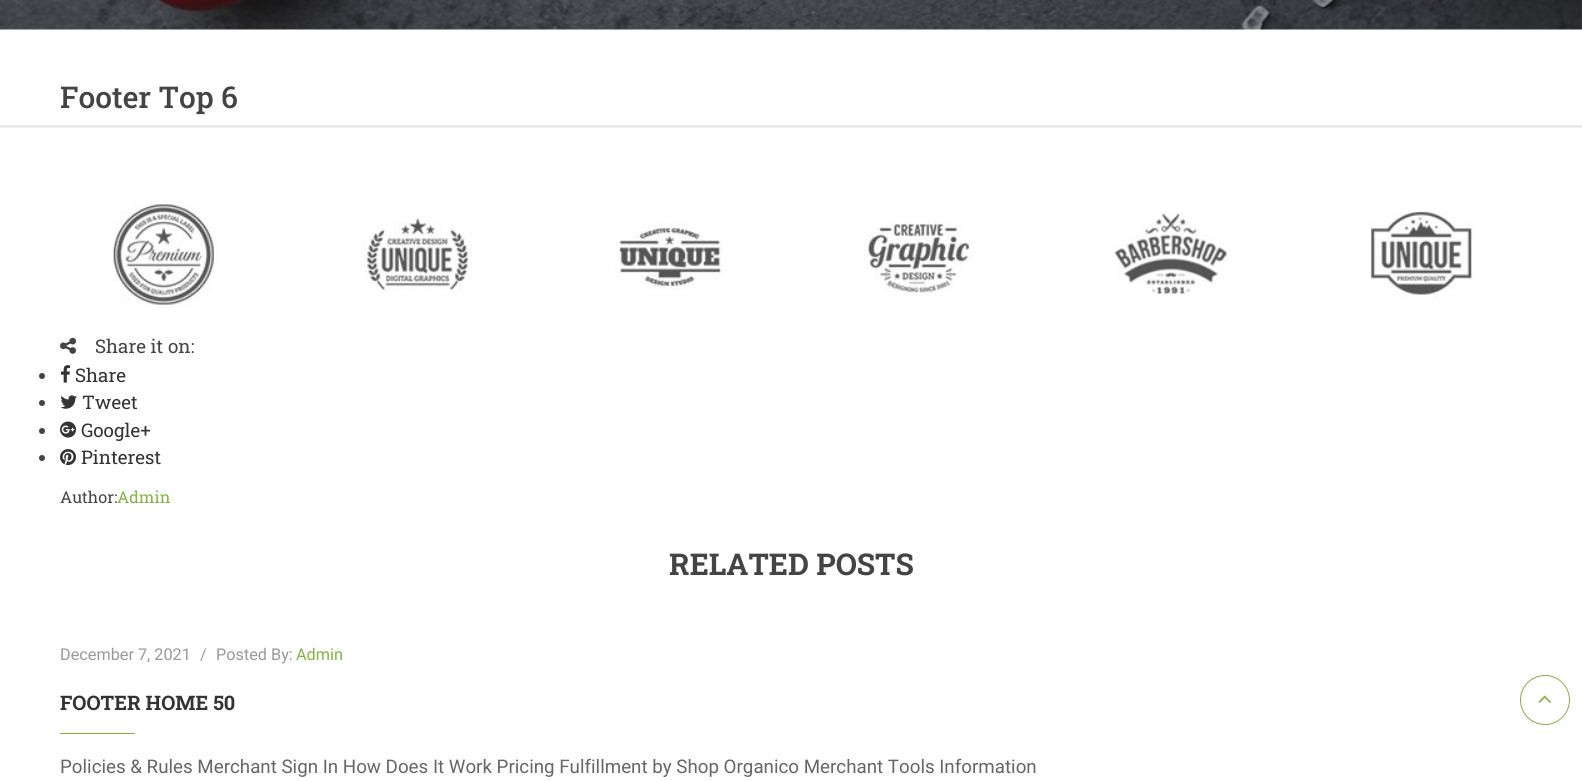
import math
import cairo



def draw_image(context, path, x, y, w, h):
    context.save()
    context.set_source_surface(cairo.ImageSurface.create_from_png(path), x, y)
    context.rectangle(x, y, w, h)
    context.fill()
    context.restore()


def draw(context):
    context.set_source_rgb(1, 1, 1)
    context.paint()
    draw_image(context, "images/1.png", 0, 0, 1582, 30)
    context.set_source_rgb(235 / 255, 235 / 255, 235 / 255)
    context.rectangle(0, 125, 1582, 3)
    context.fill()
    draw_image(context, "images/2.png", 112, 203, 108, 105)
    draw_image(context, "images/3.png", 363, 213, 109, 78)
    draw_image(context, "images/4.png", 615, 221, 108, 70)
    draw_image(context, "images/5.png", 864, 221, 109, 76)
    draw_image(context, "images/6.png", 1114, 212, 114, 83)
    draw_image(context, "images/7.png", 1369, 211, 107, 88)
    draw_image(context, "images/8.png", 60, 337, 17, 17)
    context.set_source_rgb(68 / 255, 68 / 255, 68 / 255)
    context.arc(42, 376, 3, 0, 2 * math.pi)
    context.fill()
    draw_image(context, "images/9.png", 61, 365, 10, 18)
    context.arc(42, 403, 3, 0, 2 * math.pi)
    context.fill()
    draw_image(context, "images/10.png", 60, 395, 17, 14)
    context.arc(42, 431, 3, 0, 2 * math.pi)
    context.fill()
    draw_image(context, "images/11.png", 60, 421, 17, 17)
    context.arc(42, 458, 3, 0, 2 * math.pi)
    context.fill()
    draw_image(context, "images/12.png", 60, 449, 17, 17)
    context.set_source_rgb(130 / 255, 181 / 255, 63 / 255)
    context.rectangle(60, 733, 75, 1)
    context.fill()
    context.arc(1545, 700, 24.5, 0, 2 * math.pi)
    context.set_line_width(1)
    context.stroke()
    draw_image(context, "images/13.png", 1538, 695, 13, 8)
    context.select_font_face("Roboto Slab Medium")
    context.set_font_size(30)
    context.set_source_rgb(68 / 255, 68 / 255, 68 / 255)
    context.move_to(60, 108)
    context.show_text("Footer Top 6")
    context.select_font_face("Roboto Slab")
    context.set_font_size(18.75)
    context.move_to(95, 353)
    context.show_text("Share it on:")
    context.set_source_rgb(51 / 255, 51 / 255, 51 / 255)
    context.move_to(75, 382)
    context.show_text("Share")
    context.move_to(82, 409)
    context.show_text("Tweet")
    context.move_to(81, 437)
    context.show_text("Google+")
    context.move_to(81, 464)
    context.show_text("Pinterest")
    context.set_font_size(16.25)
    context.set_source_rgb(68 / 255, 68 / 255, 68 / 255)
    context.move_to(60, 503)
    context.show_text("Author:")
    context.set_source_rgb(130 / 255, 181 / 255, 63 / 255)
    context.move_to(117, 503)
    context.show_text("Admin")
    context.select_font_face("Roboto Slab", cairo.FontSlant.NORMAL, cairo.FontWeight.BOLD)
    context.set_font_size(30)
    context.set_source_rgb(68 / 255, 68 / 255, 68 / 255)
    context.move_to(669, 575)
    context.show_text("RELATED POSTS")
    context.select_font_face("Roboto")
    context.set_font_size(16.25)
    context.set_source_rgb(153 / 255, 153 / 255, 153 / 255)
    context.move_to(60, 660)
    context.show_text("December 7, 2021")
    context.move_to(200, 660)
    context.show_text("/")
    context.move_to(216, 660)
    context.show_text("Posted By:")
    context.set_source_rgb(130 / 255, 181 / 255, 63 / 255)
    context.move_to(296, 660)
    context.show_text("Admin")
    context.select_font_face("Roboto Slab", cairo.FontSlant.NORMAL, cairo.FontWeight.BOLD)
    context.set_font_size(20)
    context.set_source_rgb(51 / 255, 51 / 255, 51 / 255)
    context.move_to(60, 710)
    context.show_text("FOOTER HOME 50")
    context.select_font_face("Roboto")
    context.set_font_size(18.75)
    context.set_source_rgb(102 / 255, 102 / 255, 102 / 255)
    context.move_to(60, 773)
    context.show_text("Policies & Rules Merchant Sign In How Does It Work Pricing Fulfillment by Shop Organico Merchant Tools Information")


surface = cairo.ImageSurface(cairo.Format.RGB24, 1582, 781)
context = cairo.Context(surface)
options = cairo.FontOptions()
options.set_hint_metrics(cairo.HintMetrics.OFF)
options.set_hint_style(cairo.HintStyle.NONE)
context.set_font_options(options)
context.set_miter_limit(4)
draw(context)
surface.write_to_png("out.png")
